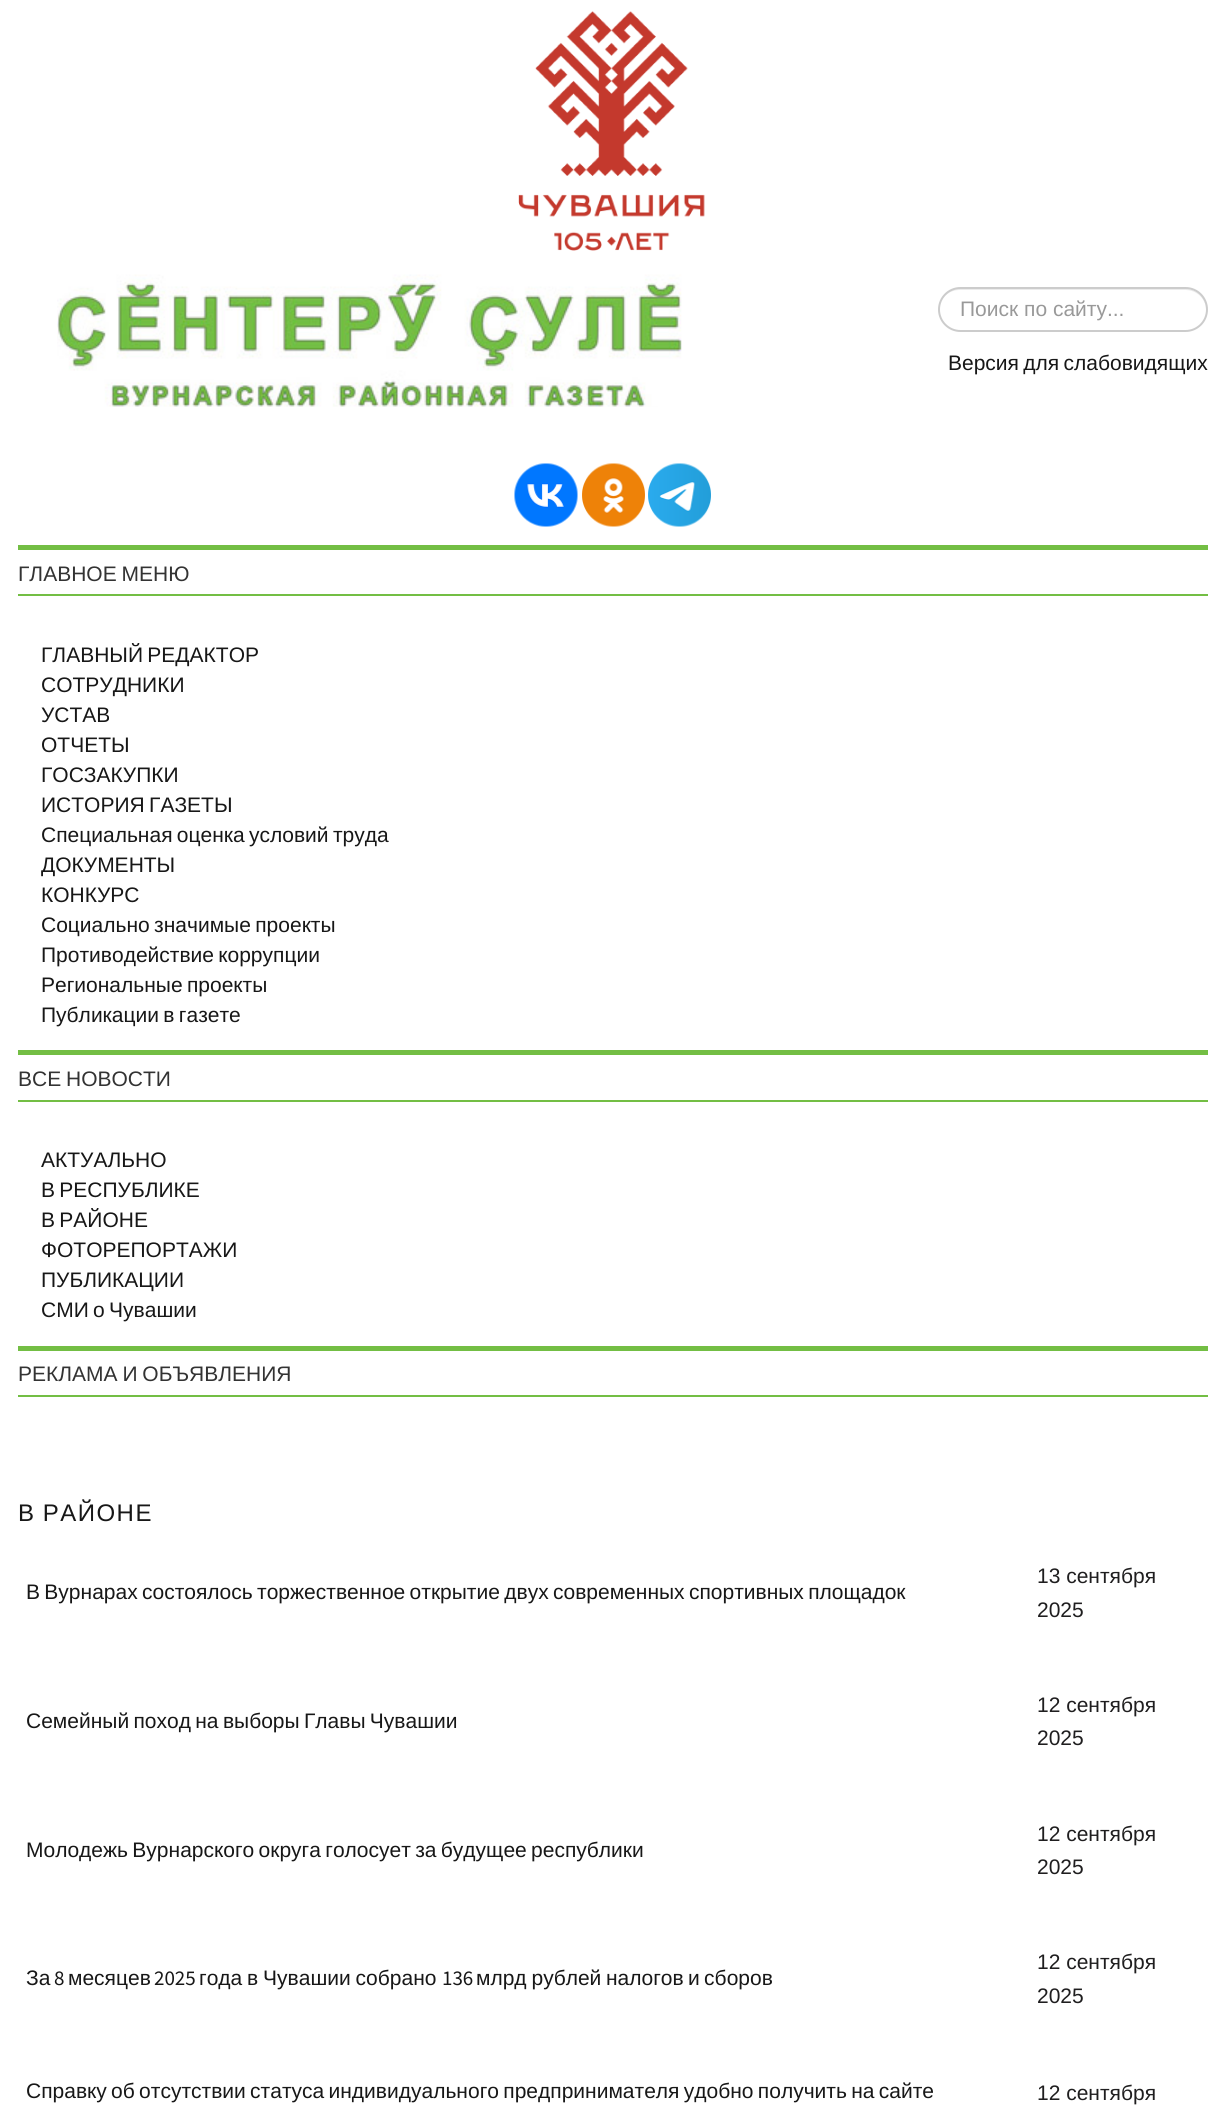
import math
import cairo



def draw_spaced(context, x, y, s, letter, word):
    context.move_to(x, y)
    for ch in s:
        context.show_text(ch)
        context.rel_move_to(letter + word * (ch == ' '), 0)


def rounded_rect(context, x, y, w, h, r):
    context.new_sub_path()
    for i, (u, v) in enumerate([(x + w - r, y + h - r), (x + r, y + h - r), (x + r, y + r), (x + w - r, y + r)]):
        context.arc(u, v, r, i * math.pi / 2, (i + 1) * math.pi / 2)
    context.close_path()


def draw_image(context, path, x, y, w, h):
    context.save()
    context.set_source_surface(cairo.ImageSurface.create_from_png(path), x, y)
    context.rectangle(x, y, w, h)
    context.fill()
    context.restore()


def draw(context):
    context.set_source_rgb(1, 1, 1)
    context.paint()
    draw_image(context, "images/1.png", 518, 11, 187, 240)
    draw_image(context, "images/2.png", 57, 274, 625, 133)
    context.set_source_rgb(236 / 255, 236 / 255, 236 / 255)
    context.new_path()
    context.move_to(960, 290)
    context.line_to(1185, 290)
    context.curve_to(1197, 290, 1206, 299, 1206, 310)
    context.curve_to(1207, 280, 1163, 288, 1148, 288)
    context.line_to(998, 288)
    context.curve_to(982, 288, 938, 280, 939, 310)
    context.curve_to(939, 299, 948, 290, 960, 290)
    context.close_path()
    context.fill()
    rounded_rect(context, 939, 288, 268, 43, 21.5)
    context.set_source_rgb(204 / 255, 204 / 255, 204 / 255)
    context.stroke()
    draw_image(context, "images/3.png", 514, 463, 64, 64)
    draw_image(context, "images/4.png", 582, 463, 63, 64)
    draw_image(context, "images/5.png", 648, 463, 63, 64)
    context.set_source_rgb(115 / 255, 190 / 255, 68 / 255)
    context.rectangle(18, 545, 1190, 5)
    context.fill()
    context.rectangle(18, 594, 1190, 2)
    context.fill()
    context.rectangle(18, 1050, 1190, 5)
    context.fill()
    context.rectangle(18, 1100, 1190, 2)
    context.fill()
    context.rectangle(18, 1346, 1190, 5)
    context.fill()
    context.rectangle(18, 1395, 1190, 2)
    context.fill()
    context.select_font_face("Liberation Sans")
    context.set_font_size(21)
    context.set_source_rgb(153 / 255, 153 / 255, 153 / 255)
    context.move_to(960, 316)
    context.show_text("Поиск по сайту...")
    context.set_source_rgb(23 / 255, 23 / 255, 23 / 255)
    draw_spaced(context, 948, 370, "Версия для слабовидящих", 0, -1.5)
    context.set_source_rgb(51 / 255, 51 / 255, 51 / 255)
    draw_spaced(context, 18, 581, "ГЛАВНОЕ МЕНЮ", 0, -1)
    context.set_source_rgb(23 / 255, 23 / 255, 23 / 255)
    draw_spaced(context, 41, 662, "ГЛАВНЫЙ РЕДАКТОР", 0, -1.5)
    context.move_to(41, 692)
    context.show_text("СОТРУДНИКИ")
    context.move_to(41, 722)
    context.show_text("УСТАВ")
    context.move_to(41, 752)
    context.show_text("ОТЧЕТЫ")
    context.move_to(41, 782)
    context.show_text("ГОСЗАКУПКИ")
    draw_spaced(context, 41, 812, "ИСТОРИЯ ГАЗЕТЫ", 0, -1.5)
    draw_spaced(context, 41, 842, "Специальная оценка условий труда", 0, -1.5)
    context.move_to(41, 872)
    context.show_text("ДОКУМЕНТЫ")
    context.move_to(41, 902)
    context.show_text("КОНКУРС")
    draw_spaced(context, 41, 932, "Социально значимые проекты", 0, -1.5)
    draw_spaced(context, 41, 962, "Противодействие коррупции", 0, -1.5)
    draw_spaced(context, 41, 992, "Региональные проекты", 0, -1.5)
    draw_spaced(context, 41, 1022, "Публикации в газете", 0, -1.5)
    context.set_source_rgb(51 / 255, 51 / 255, 51 / 255)
    draw_spaced(context, 18, 1086, "ВСЕ НОВОСТИ", 0, -1)
    context.set_source_rgb(23 / 255, 23 / 255, 23 / 255)
    context.move_to(41, 1167)
    context.show_text("АКТУАЛЬНО")
    draw_spaced(context, 41, 1197, "В РЕСПУБЛИКЕ", 0, -1.5)
    draw_spaced(context, 41, 1227, "В РАЙОНЕ", 0, -1.5)
    context.move_to(41, 1257)
    context.show_text("ФОТОРЕПОРТАЖИ")
    context.move_to(41, 1287)
    context.show_text("ПУБЛИКАЦИИ")
    draw_spaced(context, 41, 1317, "СМИ о Чувашии", 0, -1.5)
    context.set_source_rgb(51 / 255, 51 / 255, 51 / 255)
    draw_spaced(context, 18, 1381, "РЕКЛАМА И ОБЪЯВЛЕНИЯ", 0, -1)
    context.set_font_size(24)
    context.set_source_rgb(23 / 255, 23 / 255, 23 / 255)
    draw_spaced(context, 18, 1521, "В РАЙОНЕ", 1.5, -1)
    context.set_font_size(21)
    draw_spaced(context, 26, 1599, "В Вурнарах состоялось торжественное открытие двух современных спортивных площадок", 0, -1.5)
    context.set_source_rgb(31 / 255, 30 / 255, 31 / 255)
    context.move_to(1037, 1583)
    context.show_text("13 сентября")
    context.move_to(1037, 1617)
    context.show_text("2025")
    context.set_source_rgb(23 / 255, 23 / 255, 23 / 255)
    draw_spaced(context, 26, 1728, "Семейный поход на выборы Главы Чувашии", 0, -1.5)
    context.set_source_rgb(31 / 255, 30 / 255, 31 / 255)
    context.move_to(1037, 1712)
    context.show_text("12 сентября")
    context.move_to(1037, 1745)
    context.show_text("2025")
    context.set_source_rgb(23 / 255, 23 / 255, 23 / 255)
    draw_spaced(context, 26, 1857, "Молодежь Вурнарского округа голосует за будущее республики", 0, -1.5)
    context.set_source_rgb(31 / 255, 30 / 255, 31 / 255)
    context.move_to(1037, 1841)
    context.show_text("12 сентября")
    context.move_to(1037, 1874)
    context.show_text("2025")
    context.set_source_rgb(23 / 255, 23 / 255, 23 / 255)
    context.move_to(26, 1985)
    context.show_text("За")
    context.select_font_face("Source Sans Pro")
    context.move_to(54, 1985)
    context.show_text("8")
    context.select_font_face("Liberation Sans")
    context.move_to(68, 1985)
    context.show_text("месяцев")
    context.select_font_face("Source Sans Pro")
    context.move_to(154, 1985)
    context.show_text("2025")
    context.select_font_face("Liberation Sans")
    draw_spaced(context, 199, 1985, "года в Чувашии собрано", 0, -1)
    context.select_font_face("Source Sans Pro")
    context.move_to(442, 1985)
    context.show_text("136")
    context.select_font_face("Liberation Sans")
    draw_spaced(context, 476, 1985, "млрд рублей", 0, -1)
    draw_spaced(context, 606, 1985, "налогов и сборов", 0, -1.5)
    context.set_source_rgb(31 / 255, 30 / 255, 31 / 255)
    context.move_to(1037, 1969)
    context.show_text("12 сентября")
    context.move_to(1037, 2003)
    context.show_text("2025")
    context.set_source_rgb(23 / 255, 23 / 255, 23 / 255)
    draw_spaced(context, 26, 2098, "Справку об отсутствии статуса индивидуального предпринимателя удобно получить на сайте", 0, -1.5)
    context.set_source_rgb(31 / 255, 30 / 255, 31 / 255)
    context.move_to(1037, 2100)
    context.show_text("12 сентября")


surface = cairo.ImageSurface(cairo.Format.RGB24, 1225, 2113)
context = cairo.Context(surface)
options = cairo.FontOptions()
options.set_hint_metrics(cairo.HintMetrics.OFF)
options.set_hint_style(cairo.HintStyle.NONE)
context.set_font_options(options)
context.set_miter_limit(4)
draw(context)
surface.write_to_png("out.png")
